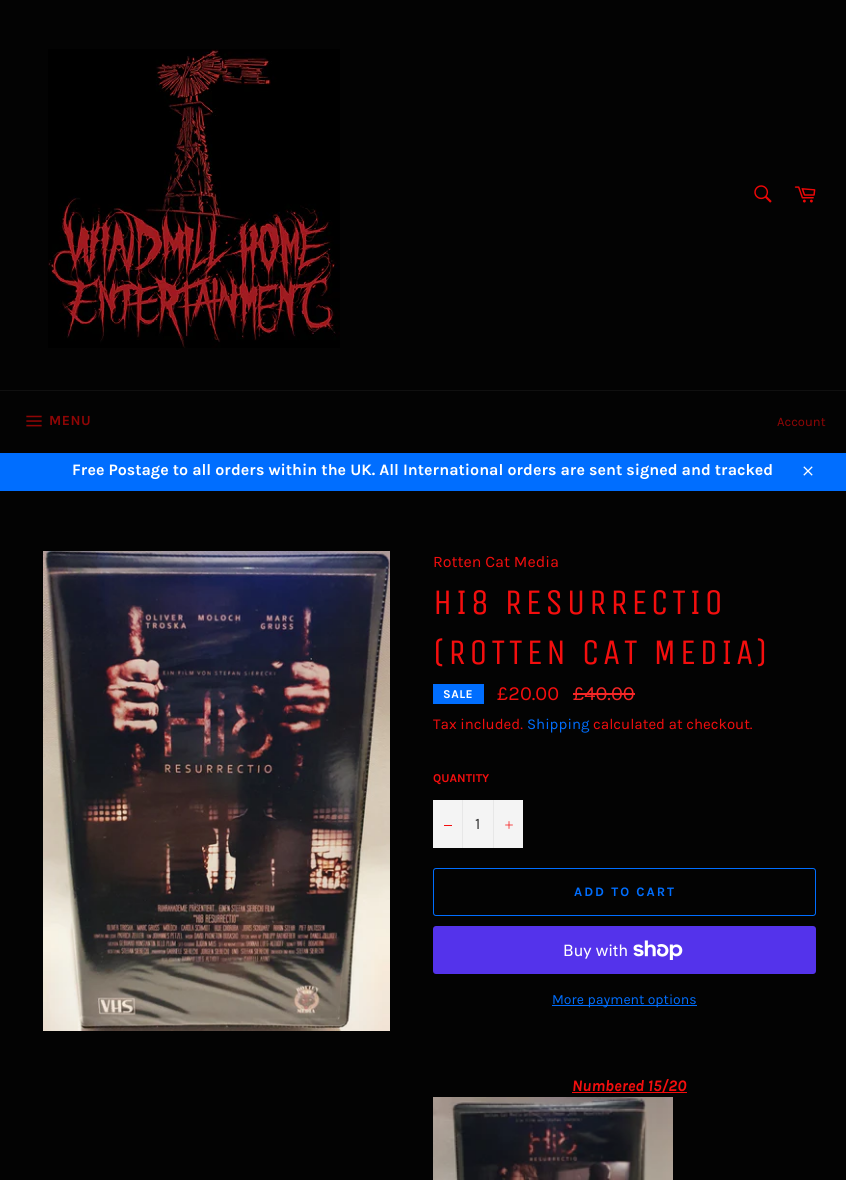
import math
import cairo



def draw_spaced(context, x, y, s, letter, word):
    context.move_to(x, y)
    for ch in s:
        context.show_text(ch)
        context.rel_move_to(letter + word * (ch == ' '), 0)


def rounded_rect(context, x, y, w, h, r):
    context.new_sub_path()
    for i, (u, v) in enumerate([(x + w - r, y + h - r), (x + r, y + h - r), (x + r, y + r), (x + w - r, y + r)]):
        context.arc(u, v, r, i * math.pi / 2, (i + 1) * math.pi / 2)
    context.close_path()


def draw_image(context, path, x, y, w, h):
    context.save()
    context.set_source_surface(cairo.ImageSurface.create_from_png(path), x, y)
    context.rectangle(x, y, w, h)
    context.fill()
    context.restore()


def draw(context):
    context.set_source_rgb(3 / 255, 3 / 255, 3 / 255)
    context.paint()
    draw_image(context, "images/1.png", 48, 49, 292, 299)
    draw_image(context, "images/2.png", 754, 185, 18, 18)
    draw_image(context, "images/3.png", 794, 186, 22, 17)
    context.set_source_rgb(16 / 255, 16 / 255, 16 / 255)
    context.rectangle(0, 390, 846, 1)
    context.fill()
    draw_image(context, "images/4.png", 26, 415, 16, 12)
    context.set_source_rgb(0, 110 / 255, 1)
    context.rectangle(0, 453, 846, 38)
    context.fill()
    draw_image(context, "images/5.png", 803, 466, 10, 10)
    draw_image(context, "images/6.png", 43, 551, 347, 480)
    context.rectangle(433, 684, 51, 20)
    context.fill()
    context.set_source_rgb(245 / 255, 38 / 255, 38 / 255)
    context.rectangle(573, 693, 62, 2)
    context.fill()
    context.set_source_rgb(244 / 255, 244 / 255, 244 / 255)
    context.rectangle(433, 800, 90, 48)
    context.fill()
    context.set_source_rgb(231 / 255, 231 / 255, 231 / 255)
    context.rectangle(462, 800, 1, 48)
    context.fill()
    context.set_source_rgb(244 / 255, 14 / 255, 14 / 255)
    context.rectangle(444, 825, 8, 1)
    context.fill()
    context.set_source_rgb(231 / 255, 231 / 255, 231 / 255)
    context.rectangle(493, 800, 1, 48)
    context.fill()
    draw_image(context, "images/7.png", 505, 821, 8, 8)
    rounded_rect(context, 433.5, 868.5, 382, 47, 2.5)
    context.set_source_rgb(0, 110 / 255, 1)
    context.set_line_width(1)
    context.stroke()
    context.set_source_rgb(84 / 255, 51 / 255, 235 / 255)
    rounded_rect(context, 433, 926, 383, 48, 3)
    context.fill()
    draw_image(context, "images/8.png", 633, 940, 50, 20)
    context.set_source_rgb(0, 110 / 255, 1)
    context.rectangle(552, 1005, 145, 1)
    context.fill()
    context.set_source_rgb(244 / 255, 14 / 255, 14 / 255)
    context.rectangle(572, 1092, 115, 1)
    context.fill()
    draw_image(context, "images/9.png", 433, 1097, 240, 83)
    context.select_font_face("Karla", cairo.FontSlant.NORMAL, cairo.FontWeight.BOLD)
    context.set_font_size(14)
    context.set_source_rgb(144 / 255, 5 / 255, 5 / 255)
    draw_spaced(context, 49, 425, "MENU", 0.5, 0)
    context.select_font_face("Karla")
    context.set_font_size(13)
    context.move_to(777, 426)
    context.show_text("Account")
    context.select_font_face("Karla", cairo.FontSlant.NORMAL, cairo.FontWeight.BOLD)
    context.set_font_size(16)
    context.set_source_rgb(1, 1, 1)
    context.move_to(72, 475)
    context.show_text("Free Postage to all orders within the UK. All International orders are sent signed and tracked")
    context.select_font_face("Karla")
    context.set_source_rgb(244 / 255, 14 / 255, 14 / 255)
    context.move_to(433, 567)
    context.show_text("Rotten Cat Media")
    context.select_font_face("Unica One")
    context.set_font_size(36)
    draw_spaced(context, 433, 614, "HI8 RESURRECTIO", 3.6, 0)
    draw_spaced(context, 433, 664, "(ROTTEN CAT MEDIA)", 3.6, 0)
    context.select_font_face("Karla", cairo.FontSlant.NORMAL, cairo.FontWeight.BOLD)
    context.set_font_size(12)
    context.set_source_rgb(1, 1, 1)
    draw_spaced(context, 443, 698, "SALE", 0.5, 0)
    context.select_font_face("Karla")
    context.set_font_size(20)
    context.set_source_rgb(244 / 255, 14 / 255, 14 / 255)
    context.move_to(497, 700)
    context.show_text("£20.00")
    context.set_source_rgb(245 / 255, 38 / 255, 38 / 255)
    context.move_to(573, 700)
    context.show_text("£40.00")
    context.set_font_size(15)
    context.set_source_rgb(244 / 255, 14 / 255, 14 / 255)
    context.move_to(433, 729)
    context.show_text("Tax included.")
    context.set_source_rgb(0, 110 / 255, 1)
    context.move_to(527, 729)
    context.show_text("Shipping")
    context.set_source_rgb(244 / 255, 14 / 255, 14 / 255)
    context.move_to(593, 729)
    context.show_text("calculated at checkout.")
    context.select_font_face("Karla", cairo.FontSlant.NORMAL, cairo.FontWeight.BOLD)
    context.set_font_size(12)
    context.move_to(433, 782)
    context.show_text("QUANTITY")
    context.select_font_face("Karla")
    context.set_font_size(16)
    context.set_source_rgb(51 / 255, 51 / 255, 51 / 255)
    context.move_to(475, 829)
    context.show_text("1")
    context.select_font_face("Karla", cairo.FontSlant.NORMAL, cairo.FontWeight.BOLD)
    context.set_font_size(13)
    context.set_source_rgb(0, 110 / 255, 1)
    draw_spaced(context, 574, 896, "ADD TO CART", 2, 0)
    context.select_font_face("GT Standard")
    context.set_font_size(16)
    context.set_source_rgb(1, 1, 1)
    context.move_to(563, 956)
    context.show_text("Buy with")
    context.select_font_face("Karla")
    context.set_font_size(14)
    context.set_source_rgb(0, 110 / 255, 1)
    context.move_to(552, 1004)
    context.show_text("More payment options")
    context.select_font_face("Karla", cairo.FontSlant.ITALIC, cairo.FontWeight.BOLD)
    context.set_font_size(16)
    context.set_source_rgb(244 / 255, 14 / 255, 14 / 255)
    context.move_to(572, 1091)
    context.show_text("Numbered 15/20")


surface = cairo.ImageSurface(cairo.Format.RGB24, 846, 1180)
context = cairo.Context(surface)
options = cairo.FontOptions()
options.set_hint_metrics(cairo.HintMetrics.OFF)
options.set_hint_style(cairo.HintStyle.NONE)
context.set_font_options(options)
context.set_miter_limit(4)
draw(context)
surface.write_to_png("out.png")
